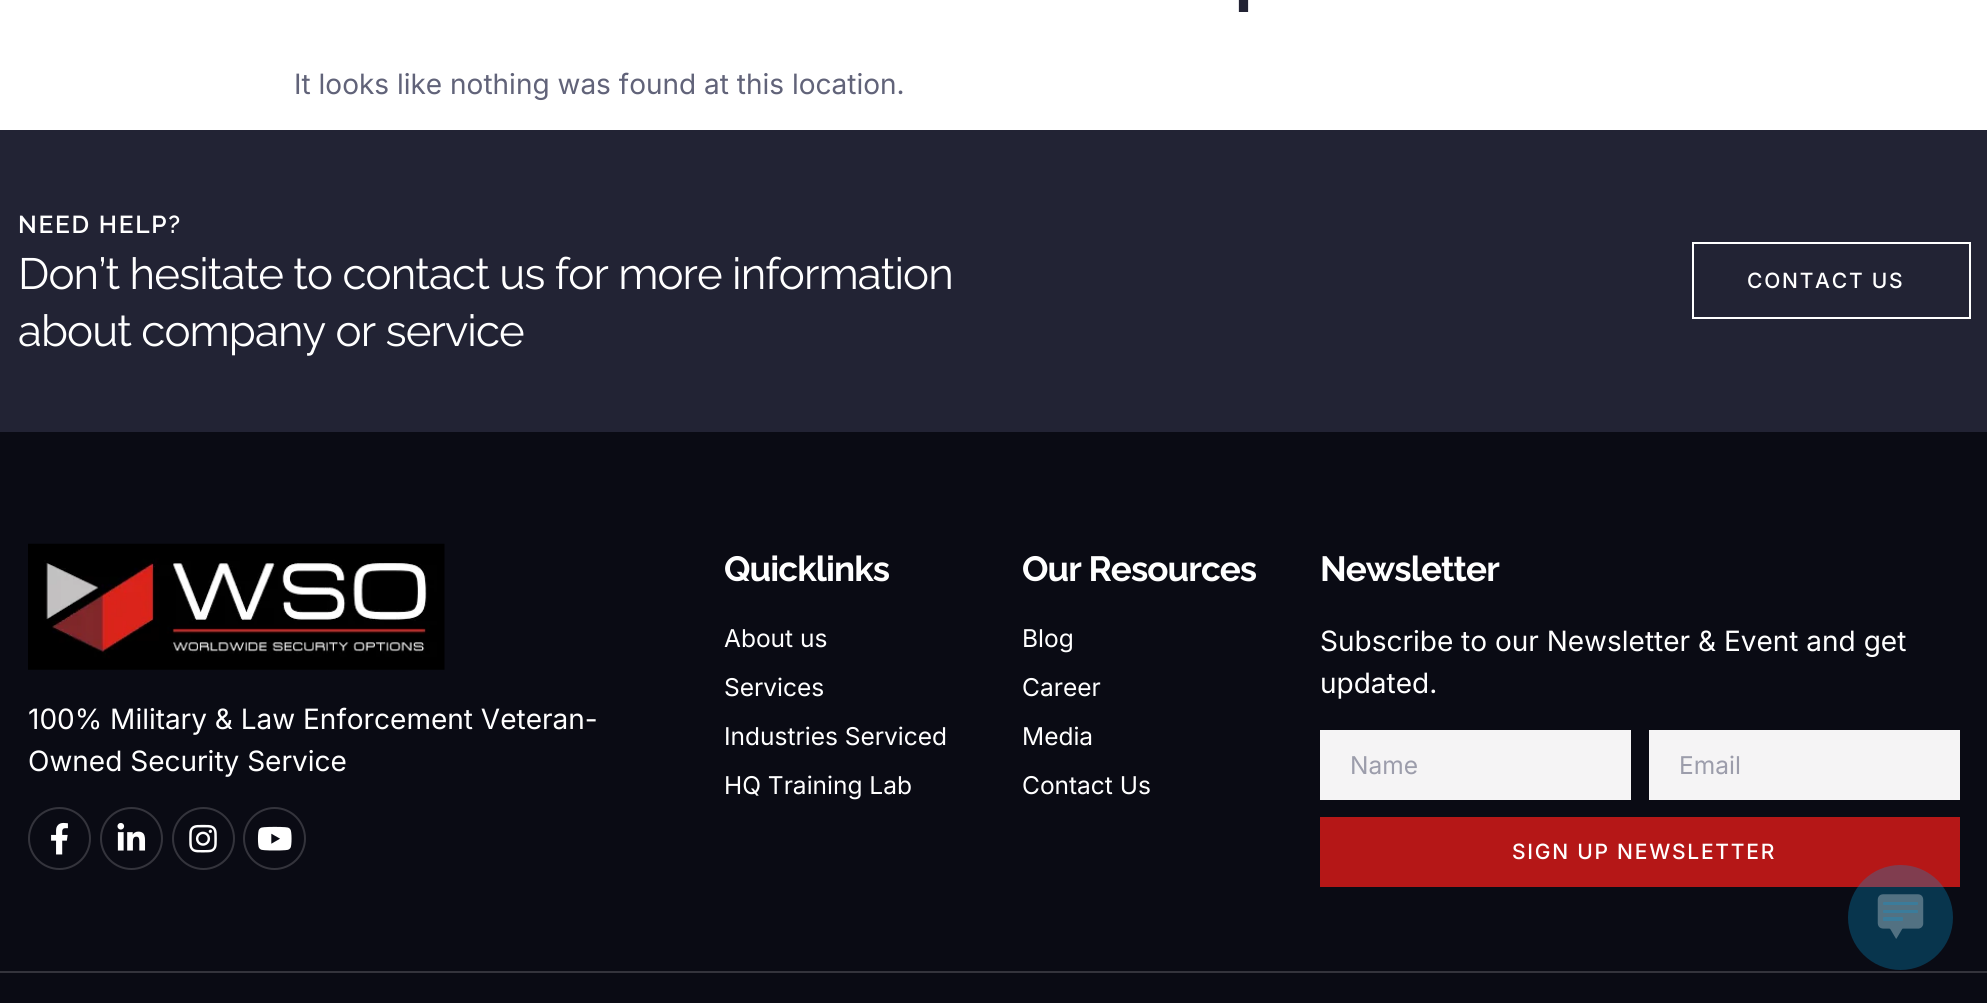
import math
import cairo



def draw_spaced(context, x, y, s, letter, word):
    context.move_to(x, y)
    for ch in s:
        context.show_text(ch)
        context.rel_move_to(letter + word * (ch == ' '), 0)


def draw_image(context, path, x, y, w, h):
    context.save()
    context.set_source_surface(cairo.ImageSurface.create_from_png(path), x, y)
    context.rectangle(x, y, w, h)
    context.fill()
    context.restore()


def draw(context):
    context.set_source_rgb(1, 1, 1)
    context.paint()
    context.set_source_rgb(34 / 255, 35 / 255, 52 / 255)
    context.rectangle(0, 130, 1987, 302)
    context.fill()
    context.rectangle(1693, 243, 277, 75)
    context.set_source_rgb(1, 1, 1)
    context.stroke()
    context.set_source_rgb(10 / 255, 11 / 255, 20 / 255)
    context.rectangle(0, 432, 1987, 571)
    context.fill()
    draw_image(context, "images/1.png", 28, 543, 417, 127)
    context.arc(59.5, 838.5, 30.5, 0, 2 * math.pi)
    context.set_source_rgb(52 / 255, 52 / 255, 60 / 255)
    context.stroke()
    draw_image(context, "images/2.png", 51, 822, 17, 33)
    context.arc(131.5, 838.5, 30.5, 0, 2 * math.pi)
    context.stroke()
    draw_image(context, "images/3.png", 117, 823, 29, 28)
    context.arc(203.5, 838.5, 30.5, 0, 2 * math.pi)
    context.stroke()
    draw_image(context, "images/4.png", 189, 824, 28, 29)
    context.arc(274.5, 838.5, 30.5, 0, 2 * math.pi)
    context.stroke()
    draw_image(context, "images/5.png", 257, 826, 35, 25)
    context.set_source_rgb(245 / 255, 244 / 255, 245 / 255)
    context.rectangle(1320, 730, 311, 70)
    context.fill()
    context.rectangle(1649, 730, 311, 70)
    context.fill()
    context.set_source_rgb(181 / 255, 23 / 255, 23 / 255)
    context.rectangle(1320, 817, 640, 70)
    context.fill()
    context.set_source_rgb(52 / 255, 52 / 255, 60 / 255)
    context.rectangle(0, 971, 1987, 2)
    context.fill()
    context.set_source_rgba(5 / 255, 150 / 255, 212 / 255, 0.3)
    context.arc(1900.5, 917.5, 52.5, 0, 2 * math.pi)
    context.fill()
    draw_image(context, "images/6.png", 1877, 894, 47, 45)
    context.select_font_face("Raleway", cairo.FontSlant.NORMAL, cairo.FontWeight.BOLD)
    context.set_font_size(84)
    context.set_source_rgb(34 / 255, 35 / 255, 52 / 255)
    draw_spaced(context, 1234, 12, ".", -2, 0)
    context.select_font_face("Inter")
    context.set_font_size(28)
    context.set_source_rgb(97 / 255, 99 / 255, 121 / 255)
    context.move_to(294, 94)
    context.show_text("It looks like nothing was found at this location.")
    context.select_font_face("Raleway SemiBold")
    context.set_font_size(24.5)
    context.set_source_rgb(1, 1, 1)
    draw_spaced(context, 18, 233, "NEED HELP?", 1.75, 0)
    context.select_font_face("Raleway")
    context.set_font_size(43.75)
    draw_spaced(context, 18, 289, "Don’t hesitate to contact us for more information", -0.9, 0)
    draw_spaced(context, 18, 346, "about company or service", -0.9, 0)
    context.select_font_face("Inter Medium")
    context.set_font_size(21)
    draw_spaced(context, 1747, 288, "CONTACT US", 1.75, 0)
    context.select_font_face("Inter")
    context.set_font_size(28)
    context.move_to(28, 729)
    context.show_text("100% Military & Law Enforcement Veteran-")
    context.move_to(28, 771)
    context.show_text("Owned Security Service")
    context.select_font_face("Raleway", cairo.FontSlant.NORMAL, cairo.FontWeight.BOLD)
    context.set_font_size(35)
    draw_spaced(context, 724, 581, "Quicklinks", -0.9, 0)
    context.select_font_face("Inter")
    context.set_font_size(24.5)
    context.move_to(724, 647)
    context.show_text("About us")
    context.move_to(724, 696)
    context.show_text("Services")
    context.move_to(724, 745)
    context.show_text("Industries Serviced")
    context.move_to(724, 794)
    context.show_text("HQ Training Lab")
    context.select_font_face("Raleway", cairo.FontSlant.NORMAL, cairo.FontWeight.BOLD)
    context.set_font_size(35)
    draw_spaced(context, 1022, 581, "Our Resources", -0.9, 0)
    context.select_font_face("Inter")
    context.set_font_size(24.5)
    context.move_to(1022, 647)
    context.show_text("Blog")
    context.move_to(1022, 696)
    context.show_text("Career")
    context.move_to(1022, 745)
    context.show_text("Media")
    context.move_to(1022, 794)
    context.show_text("Contact Us")
    context.select_font_face("Raleway", cairo.FontSlant.NORMAL, cairo.FontWeight.BOLD)
    context.set_font_size(35)
    draw_spaced(context, 1320, 581, "Newsletter", -0.9, 0)
    context.select_font_face("Inter")
    context.set_font_size(28)
    context.move_to(1320, 651)
    context.show_text("Subscribe to our Newsletter & Event and get")
    context.move_to(1320, 693)
    context.show_text("updated.")
    context.set_font_size(24.5)
    context.set_source_rgb(156 / 255, 157 / 255, 171 / 255)
    context.move_to(1350, 774)
    context.show_text("Name")
    context.move_to(1679, 774)
    context.show_text("Email")
    context.select_font_face("Inter Medium")
    context.set_font_size(21)
    context.set_source_rgb(1, 1, 1)
    draw_spaced(context, 1512, 859, "SIGN UP NEWSLETTER", 1.75, 0)


surface = cairo.ImageSurface(cairo.Format.RGB24, 1987, 1003)
context = cairo.Context(surface)
options = cairo.FontOptions()
options.set_hint_metrics(cairo.HintMetrics.OFF)
options.set_hint_style(cairo.HintStyle.NONE)
context.set_font_options(options)
context.set_miter_limit(4)
draw(context)
surface.write_to_png("out.png")
